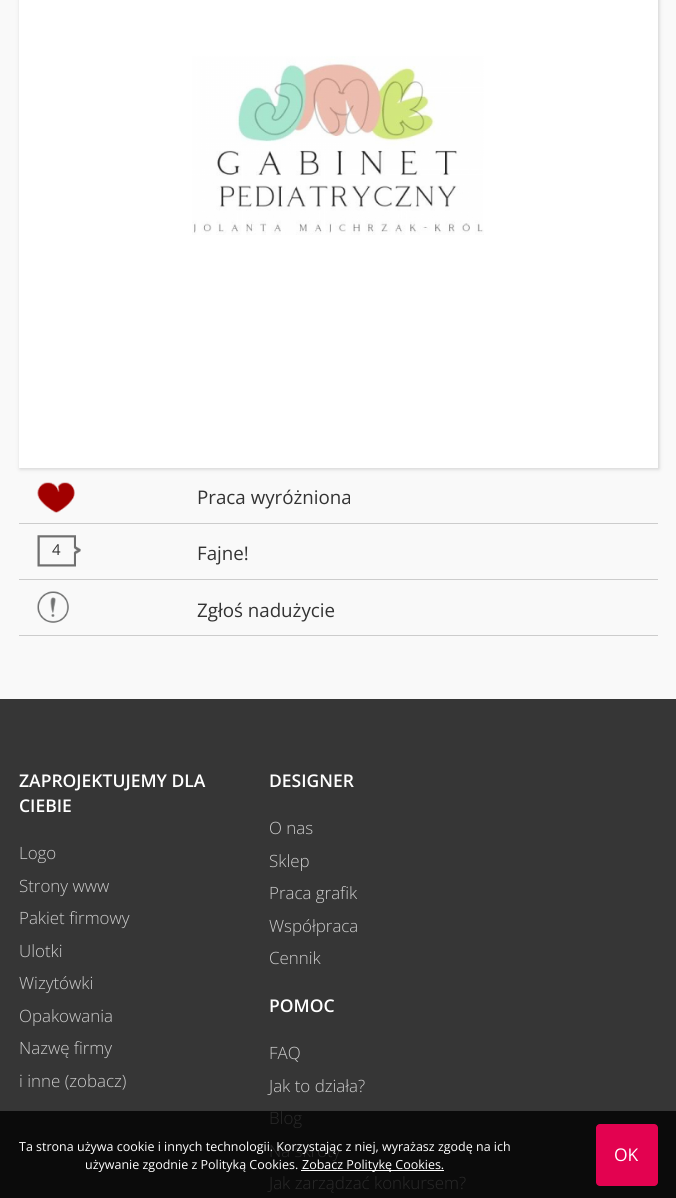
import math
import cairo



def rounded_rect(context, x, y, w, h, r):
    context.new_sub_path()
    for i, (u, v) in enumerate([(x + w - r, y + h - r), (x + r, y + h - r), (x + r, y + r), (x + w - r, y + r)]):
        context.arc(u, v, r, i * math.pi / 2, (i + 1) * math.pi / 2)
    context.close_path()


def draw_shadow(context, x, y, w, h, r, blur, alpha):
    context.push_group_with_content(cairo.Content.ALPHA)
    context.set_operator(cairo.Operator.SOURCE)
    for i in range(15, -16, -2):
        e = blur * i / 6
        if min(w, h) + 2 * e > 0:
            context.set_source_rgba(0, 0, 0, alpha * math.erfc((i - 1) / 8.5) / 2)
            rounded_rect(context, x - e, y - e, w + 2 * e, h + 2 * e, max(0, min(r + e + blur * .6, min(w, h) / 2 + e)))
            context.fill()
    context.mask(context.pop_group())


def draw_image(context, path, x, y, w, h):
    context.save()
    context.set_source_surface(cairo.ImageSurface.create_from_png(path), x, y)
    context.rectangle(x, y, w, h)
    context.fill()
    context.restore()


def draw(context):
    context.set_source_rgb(249 / 255, 249 / 255, 249 / 255)
    context.paint()
    context.set_source_rgb(206 / 255, 206 / 255, 206 / 255)
    draw_shadow(context, 20, -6, 639, 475, 0, 2, 1)
    context.set_source_rgb(1, 1, 1)
    context.rectangle(19, 0, 639, 468)
    context.fill()
    draw_image(context, "images/1.png", 192, 56, 292, 179)
    context.set_source_rgb(204 / 255, 204 / 255, 204 / 255)
    context.rectangle(19, 523, 639, 1)
    context.fill()
    draw_image(context, "images/2.png", 37, 482, 38, 31)
    context.rectangle(19, 579, 639, 1)
    context.fill()
    draw_image(context, "images/3.png", 37, 535, 44, 32)
    context.rectangle(19, 635, 639, 1)
    context.fill()
    draw_image(context, "images/4.png", 37, 591, 32, 32)
    context.set_source_rgb(54 / 255, 54 / 255, 54 / 255)
    context.rectangle(0, 699, 676, 412)
    context.fill()
    context.set_source_rgb(11 / 255, 11 / 255, 11 / 255)
    context.rectangle(0, 1111, 676, 87)
    context.fill()
    context.set_source_rgb(1, 1, 1)
    context.rectangle(301, 1170, 143, 1)
    context.fill()
    context.set_source_rgb(227 / 255, 2 / 255, 80 / 255)
    rounded_rect(context, 596, 1124, 62, 62, 4)
    context.fill()
    context.select_font_face("Open Sans")
    context.set_font_size(18.75)
    context.set_source_rgb(51 / 255, 51 / 255, 51 / 255)
    context.move_to(197, 504)
    context.show_text("Praca wyróżniona")
    context.set_font_size(15)
    context.move_to(52, 555)
    context.show_text("4")
    context.set_font_size(18.75)
    context.move_to(197, 560)
    context.show_text("Fajne!")
    context.move_to(197, 617)
    context.show_text("Zgłoś nadużycie")
    context.select_font_face("Open Sans SemiBold")
    context.set_font_size(17.5)
    context.set_source_rgb(1, 1, 1)
    context.move_to(19, 787)
    context.show_text("ZAPROJEKTUJEMY DLA")
    context.move_to(19, 812)
    context.show_text("CIEBIE")
    context.select_font_face("Open Sans Light")
    context.set_font_size(16.9)
    context.set_source_rgb(205 / 255, 205 / 255, 205 / 255)
    context.move_to(19, 859)
    context.show_text("Logo")
    context.move_to(19, 892)
    context.show_text("Strony www")
    context.move_to(19, 924)
    context.show_text("Pakiet firmowy")
    context.move_to(19, 957)
    context.show_text("Ulotki")
    context.move_to(19, 989)
    context.show_text("Wizytówki")
    context.move_to(19, 1022)
    context.show_text("Opakowania")
    context.move_to(19, 1054)
    context.show_text("Nazwę firmy")
    context.move_to(19, 1087)
    context.show_text("i inne (zobacz)")
    context.select_font_face("Open Sans SemiBold")
    context.set_font_size(17.5)
    context.set_source_rgb(1, 1, 1)
    context.move_to(269, 787)
    context.show_text("DESIGNER")
    context.select_font_face("Open Sans Light")
    context.set_font_size(16.9)
    context.set_source_rgb(205 / 255, 205 / 255, 205 / 255)
    context.move_to(269, 834)
    context.show_text("O nas")
    context.move_to(269, 867)
    context.show_text("Sklep")
    context.move_to(269, 899)
    context.show_text("Praca grafik")
    context.move_to(269, 932)
    context.show_text("Współpraca")
    context.move_to(269, 964)
    context.show_text("Cennik")
    context.select_font_face("Open Sans SemiBold")
    context.set_font_size(17.5)
    context.set_source_rgb(1, 1, 1)
    context.move_to(269, 1012)
    context.show_text("POMOC")
    context.select_font_face("Open Sans Light")
    context.set_font_size(16.9)
    context.set_source_rgb(205 / 255, 205 / 255, 205 / 255)
    context.move_to(269, 1059)
    context.show_text("FAQ")
    context.move_to(269, 1092)
    context.show_text("Jak to działa?")
    context.set_source_rgb(41 / 255, 41 / 255, 41 / 255)
    context.move_to(269, 1124)
    context.show_text("Blog")
    context.move_to(269, 1157)
    context.show_text("Na skróty")
    context.move_to(269, 1189)
    context.show_text("Jak zarządzać konkursem?")
    context.select_font_face("Open Sans")
    context.set_font_size(12.5)
    context.set_source_rgb(1, 1, 1)
    context.move_to(19, 1151)
    context.show_text("Ta strona używa cookie i innych technologii. Korzystając z niej, wyrażasz zgodę na ich")
    context.move_to(85, 1169)
    context.show_text("używanie zgodnie z Polityką Cookies.")
    context.move_to(302, 1169)
    context.show_text("Zobacz Politykę Cookies.")
    context.set_font_size(17.5)
    context.move_to(614, 1161)
    context.show_text("OK")


surface = cairo.ImageSurface(cairo.Format.RGB24, 676, 1198)
context = cairo.Context(surface)
options = cairo.FontOptions()
options.set_hint_metrics(cairo.HintMetrics.OFF)
options.set_hint_style(cairo.HintStyle.NONE)
context.set_font_options(options)
context.set_miter_limit(4)
draw(context)
surface.write_to_png("out.png")
